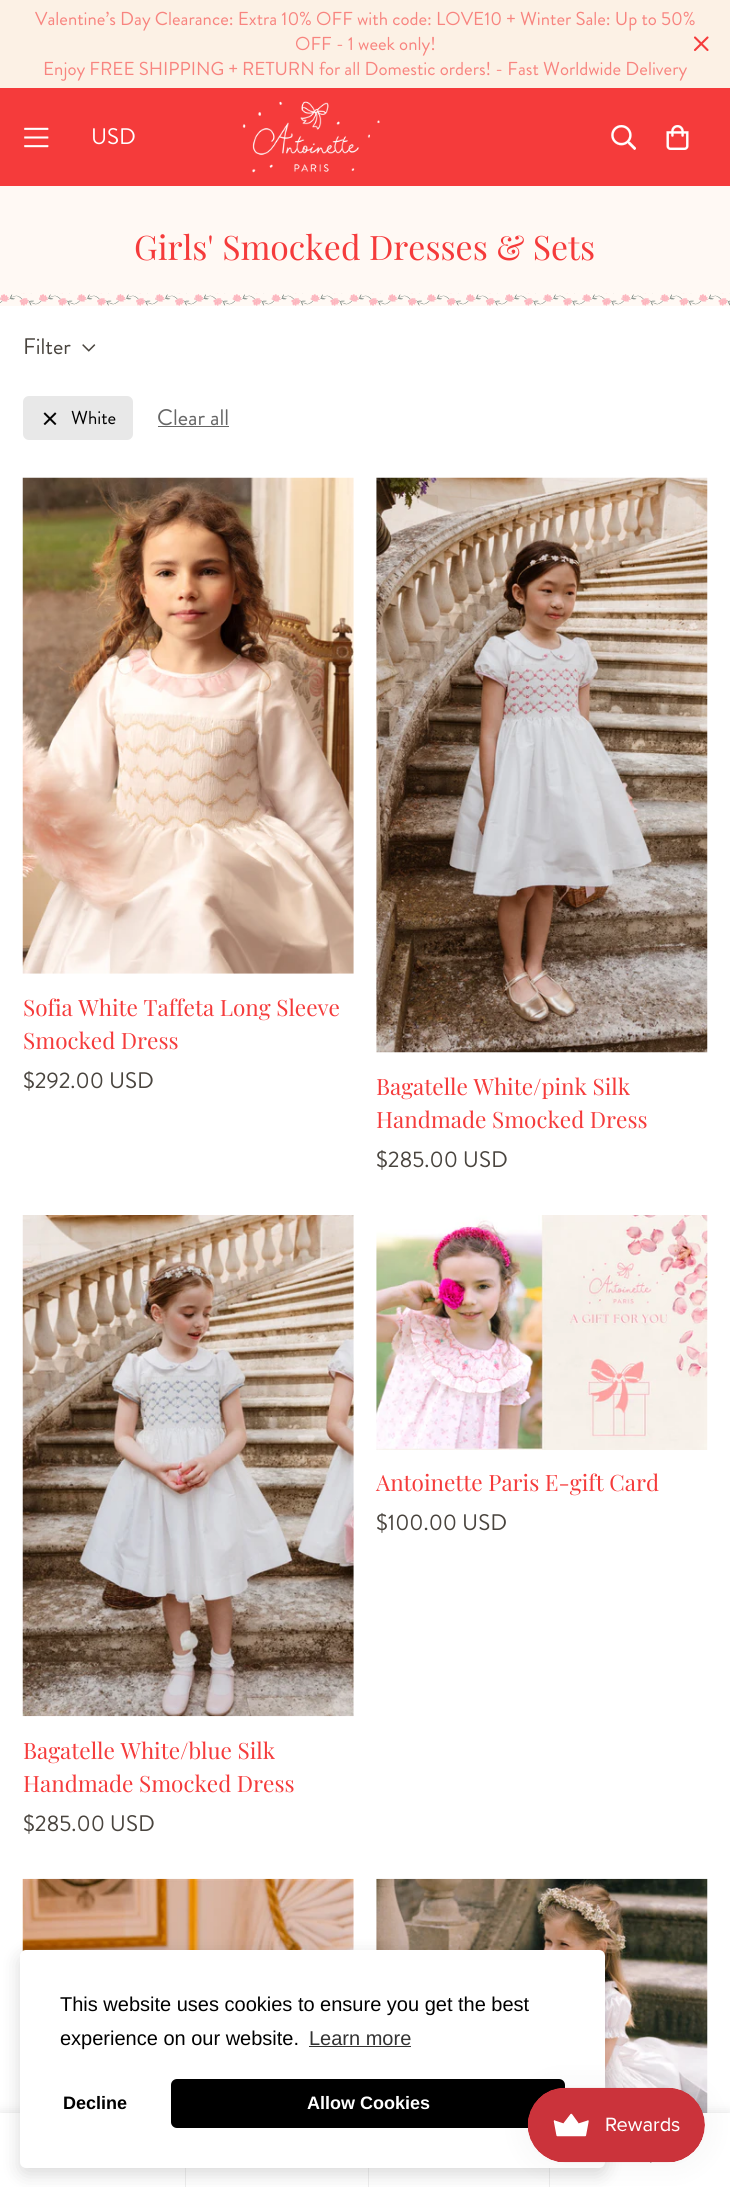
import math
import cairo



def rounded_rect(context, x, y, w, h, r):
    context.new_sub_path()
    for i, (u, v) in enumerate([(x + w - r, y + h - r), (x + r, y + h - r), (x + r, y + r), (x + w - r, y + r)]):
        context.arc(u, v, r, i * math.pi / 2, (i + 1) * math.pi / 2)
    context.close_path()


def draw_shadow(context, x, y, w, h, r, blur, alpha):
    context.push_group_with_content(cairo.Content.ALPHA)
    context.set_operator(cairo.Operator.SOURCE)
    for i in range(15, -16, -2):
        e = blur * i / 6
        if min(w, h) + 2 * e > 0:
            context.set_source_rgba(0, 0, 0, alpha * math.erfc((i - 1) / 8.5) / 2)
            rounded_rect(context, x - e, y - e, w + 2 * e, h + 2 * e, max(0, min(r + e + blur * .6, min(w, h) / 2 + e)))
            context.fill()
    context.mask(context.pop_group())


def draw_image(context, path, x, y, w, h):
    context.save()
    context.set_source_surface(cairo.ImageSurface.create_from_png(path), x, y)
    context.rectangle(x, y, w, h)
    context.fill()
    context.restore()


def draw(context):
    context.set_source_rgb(1, 1, 1)
    context.paint()
    context.set_source_rgb(252 / 255, 241 / 255, 229 / 255)
    context.rectangle(0, 0, 730, 88)
    context.fill()
    context.new_path()
    context.move_to(695, 50)
    context.line_to(707.5, 37.5)
    context.move_to(695, 37.5)
    context.line_to(707.5, 50)
    context.set_source_rgb(245 / 255, 59 / 255, 59 / 255)
    context.set_line_width(2.1)
    context.set_line_cap(cairo.LineCap.ROUND)
    context.set_line_join(cairo.LineJoin.ROUND)
    context.stroke()
    context.rectangle(0, 88, 730, 98)
    context.fill()
    draw_image(context, "images/1.png", 24, 127, 25, 21)
    draw_image(context, "images/2.png", 242, 101, 138, 72)
    draw_image(context, "images/3.png", 611, 125, 25, 25)
    draw_image(context, "images/4.png", 666, 125, 23, 25)
    context.set_source_rgb(1, 249 / 255, 244 / 255)
    context.rectangle(0, 186, 730, 120)
    context.fill()
    draw_image(context, "images/5.png", 0, 293, 730, 13)
    draw_image(context, "images/6.png", 82, 344, 14, 8)
    context.set_source_rgb(232 / 255, 232 / 255, 232 / 255)
    rounded_rect(context, 23, 396, 110, 44, 6)
    context.fill()
    draw_image(context, "images/7.png", 43, 412, 14, 13)
    context.set_source_rgb(102 / 255, 102 / 255, 102 / 255)
    context.rectangle(158, 426, 71, 1)
    context.fill()
    draw_image(context, "images/8.png", 22, 477, 332, 497)
    draw_image(context, "images/9.png", 376, 477, 332, 576)
    draw_image(context, "images/10.png", 376, 1215, 332, 235)
    draw_image(context, "images/11.png", 22, 1215, 332, 502)
    draw_image(context, "images/12.png", 22, 1878, 332, 74)
    draw_image(context, "images/13.png", 376, 1878, 332, 235)
    context.set_source_rgb(0, 0, 0)
    draw_shadow(context, 0, 2113, 730, 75, 0, 6, 0.11)
    context.set_source_rgb(1, 1, 1)
    context.rectangle(0, 2113, 730, 74)
    context.fill()
    context.set_source_rgb(238 / 255, 238 / 255, 238 / 255)
    context.rectangle(185, 2168, 1, 19)
    context.fill()
    context.rectangle(368, 2168, 1, 19)
    context.fill()
    context.rectangle(549, 2168, 1, 19)
    context.fill()
    context.set_source_rgb(0, 0, 0)
    draw_shadow(context, 20, 1956, 585, 218, 6, 9.5, 0.15)
    context.set_source_rgb(1, 1, 1)
    rounded_rect(context, 20, 1950, 585, 218, 6)
    context.fill()
    context.set_source_rgb(51 / 255, 51 / 255, 51 / 255)
    context.rectangle(309, 2046, 102, 1)
    context.fill()
    context.set_source_rgb(0, 0, 0)
    rounded_rect(context, 171, 2079, 394, 49, 6)
    context.fill()
    draw_image(context, "images/15.png", 650, 2162, 2, 1)
    context.set_source_rgb(0, 0, 0)
    draw_shadow(context, 528, 2088, 177, 75, 37.5, 15.5, 0.05)
    draw_image(context, "images/14.png", 527, 2087, 178, 76)
    context.select_font_face("Brandon Grotesque")
    context.set_font_size(18.75)
    context.set_source_rgb(248 / 255, 132 / 255, 127 / 255)
    context.move_to(35, 25)
    context.show_text("Valentine’s Day Clearance: Extra 10% OFF with code: LOVE10 + Winter Sale: Up to 50%")
    context.move_to(295, 50)
    context.show_text("OFF - 1 week only!")
    context.move_to(43, 75)
    context.show_text("Enjoy FREE SHIPPING + RETURN for all Domestic orders! - Fast Worldwide Delivery")
    context.set_font_size(22.5)
    context.set_source_rgb(1, 1, 1)
    context.move_to(91, 144)
    context.show_text("USD")
    context.select_font_face("Playfair Display")
    context.set_font_size(33.75)
    context.set_source_rgb(245 / 255, 59 / 255, 59 / 255)
    context.move_to(134, 260)
    context.show_text("Girls' Smocked Dresses & Sets")
    context.select_font_face("Brandon Grotesque")
    context.set_font_size(22.5)
    context.set_source_rgb(73 / 255, 68 / 255, 62 / 255)
    context.move_to(23, 354)
    context.show_text("Filter")
    context.set_font_size(18.75)
    context.set_source_rgb(0, 0, 0)
    context.move_to(71, 424)
    context.show_text("White")
    context.set_font_size(22.5)
    context.set_source_rgb(102 / 255, 102 / 255, 102 / 255)
    context.move_to(157, 425)
    context.show_text("Clear all")
    context.select_font_face("Playfair Display")
    context.set_source_rgb(245 / 255, 59 / 255, 59 / 255)
    context.move_to(23, 1016)
    context.show_text("Sofia White Taffeta Long Sleeve")
    context.move_to(23, 1049)
    context.show_text("Smocked Dress")
    context.select_font_face("Brandon Grotesque")
    context.set_source_rgb(73 / 255, 68 / 255, 62 / 255)
    context.move_to(23, 1088)
    context.show_text("$292.00 USD")
    context.select_font_face("Playfair Display")
    context.set_source_rgb(245 / 255, 59 / 255, 59 / 255)
    context.move_to(376, 1095)
    context.show_text("Bagatelle White/pink Silk")
    context.move_to(376, 1128)
    context.show_text("Handmade Smocked Dress")
    context.select_font_face("Brandon Grotesque")
    context.set_source_rgb(73 / 255, 68 / 255, 62 / 255)
    context.move_to(376, 1167)
    context.show_text("$285.00 USD")
    context.select_font_face("Playfair Display")
    context.set_source_rgb(245 / 255, 59 / 255, 59 / 255)
    context.move_to(376, 1491)
    context.show_text("Antoinette Paris E-gift Card")
    context.select_font_face("Brandon Grotesque")
    context.set_source_rgb(73 / 255, 68 / 255, 62 / 255)
    context.move_to(376, 1530)
    context.show_text("$100.00 USD")
    context.select_font_face("Playfair Display")
    context.set_source_rgb(245 / 255, 59 / 255, 59 / 255)
    context.move_to(23, 1759)
    context.show_text("Bagatelle White/blue Silk")
    context.move_to(23, 1792)
    context.show_text("Handmade Smocked Dress")
    context.select_font_face("Brandon Grotesque")
    context.set_source_rgb(73 / 255, 68 / 255, 62 / 255)
    context.move_to(23, 1831)
    context.show_text("$285.00 USD")
    context.select_font_face("Liberation Sans")
    context.set_font_size(20)
    context.set_source_rgb(0, 0, 0)
    context.move_to(60, 2011)
    context.show_text("This website uses cookies to ensure you get the best")
    context.move_to(60, 2045)
    context.show_text("experience on our website.")
    context.set_source_rgb(51 / 255, 51 / 255, 51 / 255)
    context.move_to(309, 2045)
    context.show_text("Learn more")
    context.select_font_face("Liberation Sans", cairo.FontSlant.NORMAL, cairo.FontWeight.BOLD)
    context.set_font_size(18)
    context.set_source_rgb(0, 0, 0)
    context.move_to(63, 2109)
    context.show_text("Decline")
    context.set_source_rgb(1, 1, 1)
    context.move_to(307, 2109)
    context.show_text("Allow Cookies")


surface = cairo.ImageSurface(cairo.Format.RGB24, 730, 2187)
context = cairo.Context(surface)
options = cairo.FontOptions()
options.set_hint_metrics(cairo.HintMetrics.OFF)
options.set_hint_style(cairo.HintStyle.NONE)
context.set_font_options(options)
context.set_miter_limit(4)
draw(context)
surface.write_to_png("out.png")
